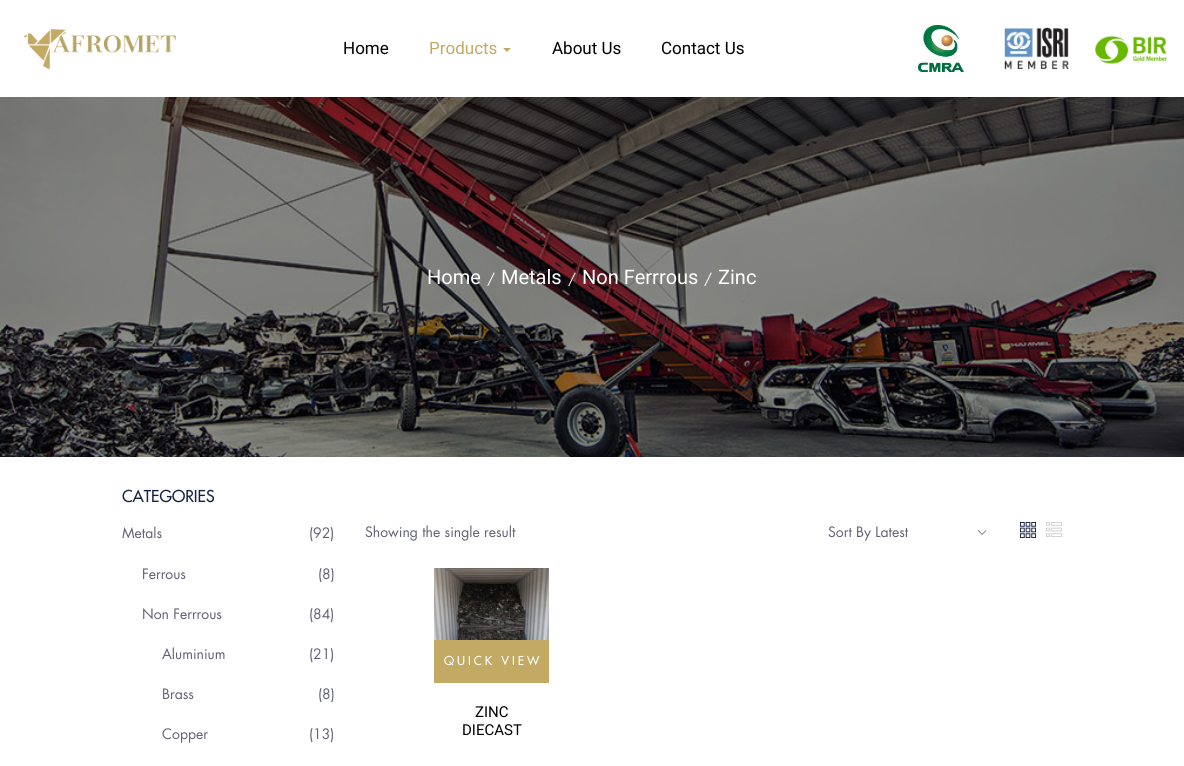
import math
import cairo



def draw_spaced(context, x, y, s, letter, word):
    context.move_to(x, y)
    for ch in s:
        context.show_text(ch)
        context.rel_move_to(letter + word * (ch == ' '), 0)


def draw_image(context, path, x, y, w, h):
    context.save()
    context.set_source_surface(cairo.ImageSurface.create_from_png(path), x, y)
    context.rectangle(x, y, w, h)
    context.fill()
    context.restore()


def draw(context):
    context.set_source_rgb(1, 1, 1)
    context.paint()
    draw_image(context, "images/1.png", 23, 29, 153, 41)
    context.set_source_rgb(194 / 255, 169 / 255, 100 / 255)
    context.new_path()
    context.move_to(503, 48)
    context.line_to(511, 48)
    context.line_to(507, 52)
    context.close_path()
    context.fill()
    draw_image(context, "images/2.png", 918, 25, 46, 47)
    draw_image(context, "images/3.png", 1003, 27, 66, 43)
    draw_image(context, "images/4.png", 1094, 36, 74, 29)
    draw_image(context, "images/5.png", 0, 97, 1184, 360)
    draw_image(context, "images/6.png", 977, 530, 10, 5)
    draw_image(context, "images/7.png", 1020, 522, 16, 16)
    draw_image(context, "images/8.png", 1046, 522, 16, 15)
    draw_image(context, "images/9.png", 434, 568, 115, 72)
    context.rectangle(434, 640, 115, 43)
    context.fill()
    context.select_font_face("Roboto")
    context.set_font_size(17)
    context.set_source_rgb(0, 0, 0)
    context.move_to(343, 54)
    context.show_text("Home")
    context.set_source_rgb(194 / 255, 169 / 255, 100 / 255)
    context.move_to(429, 54)
    context.show_text("Products")
    context.set_source_rgb(0, 0, 0)
    context.move_to(552, 54)
    context.show_text("About Us")
    context.move_to(661, 54)
    context.show_text("Contact Us")
    context.set_font_size(20)
    context.set_source_rgb(1, 1, 1)
    context.move_to(427, 284)
    context.show_text("Home")
    context.select_font_face("Futura")
    context.set_font_size(14)
    context.move_to(487, 284)
    context.show_text("/")
    context.select_font_face("Roboto")
    context.set_font_size(20)
    context.move_to(501, 284)
    context.show_text("Metals")
    context.select_font_face("Futura")
    context.set_font_size(14)
    context.move_to(568, 284)
    context.show_text("/")
    context.select_font_face("Roboto")
    context.set_font_size(20)
    context.move_to(582, 284)
    context.show_text("Non Ferrrous")
    context.select_font_face("Futura")
    context.set_font_size(14)
    context.move_to(704, 284)
    context.show_text("/")
    context.select_font_face("Roboto")
    context.set_font_size(20)
    context.move_to(718, 284)
    context.show_text("Zinc")
    context.select_font_face("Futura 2")
    context.set_font_size(16)
    context.set_source_rgb(21 / 255, 34 / 255, 66 / 255)
    context.move_to(122, 502)
    context.show_text("CATEGORIES")
    context.select_font_face("Futura")
    context.set_font_size(14)
    context.set_source_rgb(97 / 255, 97 / 255, 116 / 255)
    context.move_to(122, 538)
    context.show_text("Metals")
    context.move_to(309, 538)
    context.show_text("(92)")
    context.move_to(142, 579)
    context.show_text("Ferrous")
    context.move_to(318, 579)
    context.show_text("(8)")
    context.move_to(142, 619)
    context.show_text("Non Ferrrous")
    context.move_to(309, 619)
    context.show_text("(84)")
    context.move_to(162, 659)
    context.show_text("Aluminium")
    context.move_to(309, 659)
    context.show_text("(21)")
    context.move_to(162, 699)
    context.show_text("Brass")
    context.move_to(318, 699)
    context.show_text("(8)")
    context.move_to(162, 739)
    context.show_text("Copper")
    context.move_to(309, 739)
    context.show_text("(13)")
    context.move_to(365, 537)
    context.show_text("Showing the single result")
    context.move_to(828, 537)
    context.show_text("Sort By Latest")
    context.select_font_face("Futura 2")
    context.set_font_size(12)
    context.set_source_rgb(1, 1, 1)
    draw_spaced(context, 444, 665, "QUICK VIEW", 3, 0)
    context.select_font_face("Roboto")
    context.set_font_size(15)
    context.set_source_rgb(0, 0, 0)
    context.move_to(475, 717)
    context.show_text("ZINC")
    context.move_to(462, 735)
    context.show_text("DIECAST")


surface = cairo.ImageSurface(cairo.Format.RGB24, 1184, 766)
context = cairo.Context(surface)
options = cairo.FontOptions()
options.set_hint_metrics(cairo.HintMetrics.OFF)
options.set_hint_style(cairo.HintStyle.NONE)
context.set_font_options(options)
context.set_miter_limit(4)
draw(context)
surface.write_to_png("out.png")
